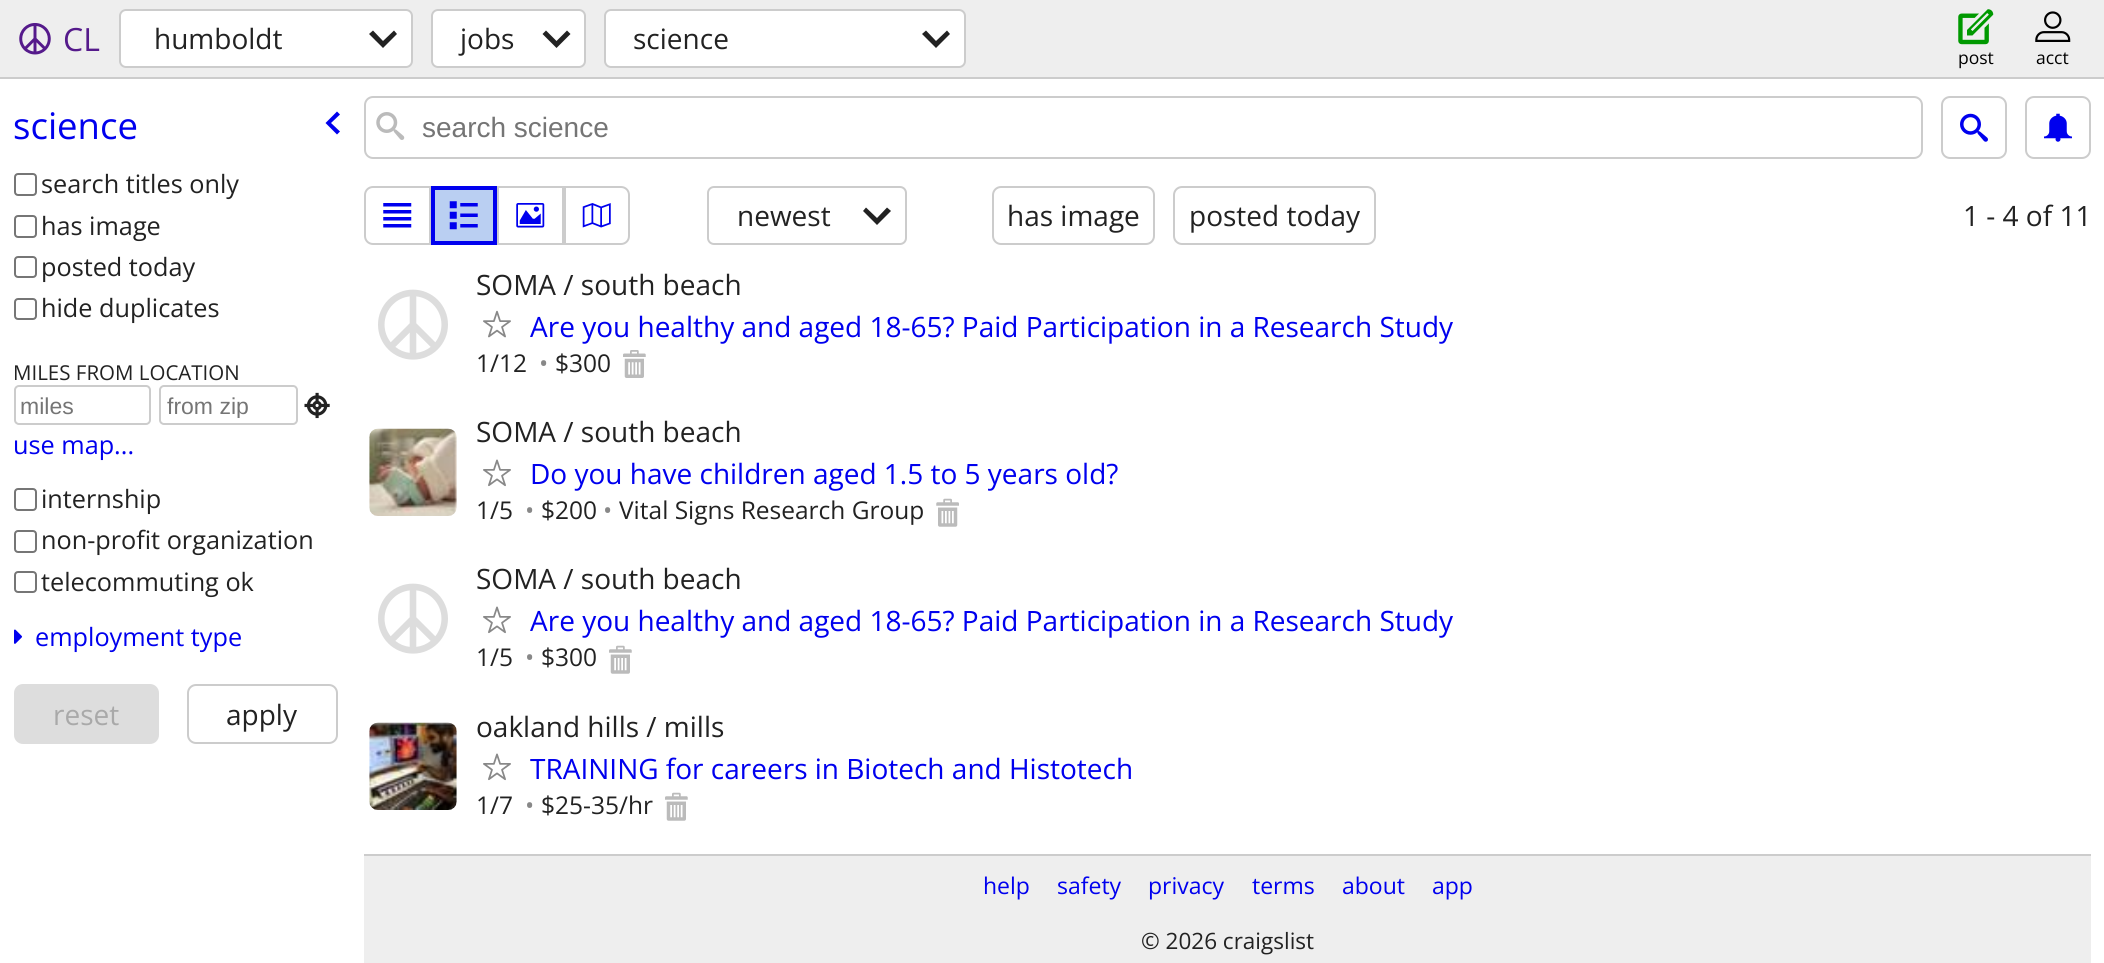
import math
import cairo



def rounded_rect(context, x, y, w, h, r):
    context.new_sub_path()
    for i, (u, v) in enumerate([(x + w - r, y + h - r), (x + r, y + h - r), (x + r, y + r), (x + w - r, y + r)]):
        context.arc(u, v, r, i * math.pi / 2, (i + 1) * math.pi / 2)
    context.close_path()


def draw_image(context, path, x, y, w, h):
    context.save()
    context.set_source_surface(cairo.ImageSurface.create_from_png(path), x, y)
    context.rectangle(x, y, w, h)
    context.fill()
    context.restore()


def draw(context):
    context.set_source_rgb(1, 1, 1)
    context.paint()
    context.set_source_rgb(238 / 255, 238 / 255, 238 / 255)
    context.rectangle(0, 0, 2104, 77)
    context.fill()
    context.set_source_rgb(204 / 255, 204 / 255, 204 / 255)
    context.rectangle(0, 77, 2104, 2)
    context.fill()
    draw_image(context, "images/1.png", 19, 23, 32, 32)
    context.set_source_rgb(1, 1, 1)
    rounded_rect(context, 120, 10, 292, 57, 6)
    context.fill_preserve()
    context.set_source_rgb(204 / 255, 204 / 255, 204 / 255)
    context.stroke()
    context.set_source_rgb(34 / 255, 34 / 255, 34 / 255)
    context.new_path()
    context.move_to(397, 34)
    context.line_to(394, 30.5)
    context.line_to(383, 41)
    context.line_to(373, 30.5)
    context.line_to(369, 34)
    context.line_to(383, 48)
    context.close_path()
    context.fill()
    context.set_source_rgb(1, 1, 1)
    rounded_rect(context, 432, 10, 153, 57, 6)
    context.fill_preserve()
    context.set_source_rgb(204 / 255, 204 / 255, 204 / 255)
    context.stroke()
    context.set_source_rgb(34 / 255, 34 / 255, 34 / 255)
    context.new_path()
    context.move_to(570.5, 34)
    context.line_to(567, 30.5)
    context.line_to(556.5, 41)
    context.line_to(546, 30.5)
    context.line_to(542.5, 34)
    context.line_to(556.5, 48)
    context.close_path()
    context.fill()
    context.set_source_rgb(1, 1, 1)
    rounded_rect(context, 605, 10, 360, 57, 6)
    context.fill_preserve()
    context.set_source_rgb(204 / 255, 204 / 255, 204 / 255)
    context.stroke()
    context.set_source_rgb(34 / 255, 34 / 255, 34 / 255)
    context.new_path()
    context.move_to(950, 34)
    context.line_to(947, 30.5)
    context.line_to(936, 41)
    context.line_to(926, 30.5)
    context.line_to(922, 34)
    context.line_to(936, 48)
    context.close_path()
    context.fill()
    draw_image(context, "images/2.png", 1958, 9, 36, 36)
    draw_image(context, "images/3.png", 2035, 11, 36, 31)
    context.set_source_rgb(0, 0, 238 / 255)
    context.new_path()
    context.move_to(337, 134.5)
    context.line_to(340, 131.5)
    context.line_to(331, 123)
    context.line_to(340, 114.5)
    context.line_to(337, 111.5)
    context.line_to(325.5, 123)
    context.close_path()
    context.fill()
    rounded_rect(context, 15, 174, 21, 21, 3)
    context.set_source_rgb(118 / 255, 118 / 255, 118 / 255)
    context.stroke()
    rounded_rect(context, 15, 216, 21, 21, 3)
    context.stroke()
    rounded_rect(context, 15, 257, 21, 20, 3)
    context.stroke()
    rounded_rect(context, 15, 299, 21, 20, 3)
    context.stroke()
    rounded_rect(context, 15, 386, 135, 38, 4)
    context.set_source_rgb(204 / 255, 204 / 255, 204 / 255)
    context.stroke()
    rounded_rect(context, 160, 386, 137, 38, 4)
    context.stroke()
    draw_image(context, "images/4.png", 304, 392, 26, 27)
    rounded_rect(context, 15, 489, 21, 21, 3)
    context.set_source_rgb(118 / 255, 118 / 255, 118 / 255)
    context.stroke()
    rounded_rect(context, 15, 531, 21, 21, 3)
    context.stroke()
    rounded_rect(context, 15, 572, 21, 20, 3)
    context.stroke()
    draw_image(context, "images/5.png", 14, 629, 9, 15)
    context.set_source_rgb(221 / 255, 221 / 255, 221 / 255)
    rounded_rect(context, 15, 685, 143, 58, 8)
    context.fill_preserve()
    context.stroke()
    rounded_rect(context, 188, 685, 149, 58, 8)
    context.set_source_rgb(204 / 255, 204 / 255, 204 / 255)
    context.stroke()
    rounded_rect(context, 365, 97, 1557, 61, 8)
    context.stroke()
    draw_image(context, "images/6.png", 376, 112, 29, 28)
    rounded_rect(context, 1942, 97, 64, 61, 8)
    context.stroke()
    draw_image(context, "images/7.png", 1960, 113, 28, 29)
    rounded_rect(context, 2026, 97, 64, 61, 8)
    context.stroke()
    draw_image(context, "images/8.png", 2044, 113, 28, 29)
    context.new_path()
    context.move_to(373, 187)
    context.line_to(430, 187)
    context.line_to(430, 244)
    context.line_to(373, 244)
    context.curve_to(368.5, 244, 365, 240.5, 365, 236)
    context.line_to(365, 195)
    context.curve_to(365, 190.5, 368.5, 187, 373, 187)
    context.close_path()
    context.stroke()
    draw_image(context, "images/9.png", 383, 203, 29, 25)
    context.set_source_rgb(186 / 255, 207 / 255, 242 / 255)
    context.rectangle(433, 188, 62, 55)
    context.fill_preserve()
    context.set_source_rgb(0, 0, 238 / 255)
    context.set_line_width(4)
    context.stroke()
    draw_image(context, "images/10.png", 449, 201, 29, 29)
    context.rectangle(498, 187, 65, 57)
    context.set_source_rgb(204 / 255, 204 / 255, 204 / 255)
    context.set_line_width(2)
    context.stroke()
    draw_image(context, "images/11.png", 516, 203, 29, 25)
    context.new_path()
    context.move_to(565, 187)
    context.line_to(621, 187)
    context.curve_to(625.5, 187, 629, 190.5, 629, 195)
    context.line_to(629, 236)
    context.curve_to(629, 240.5, 625.5, 244, 621, 244)
    context.line_to(565, 244)
    context.close_path()
    context.stroke()
    draw_image(context, "images/12.png", 582, 203, 29, 25)
    rounded_rect(context, 708, 187, 198, 57, 6)
    context.stroke()
    context.set_source_rgb(34 / 255, 34 / 255, 34 / 255)
    context.new_path()
    context.move_to(891, 211)
    context.line_to(887, 207.5)
    context.line_to(877, 218)
    context.line_to(866, 207.5)
    context.line_to(863, 211)
    context.line_to(877, 225)
    context.close_path()
    context.fill()
    rounded_rect(context, 993, 187, 161, 57, 8)
    context.set_source_rgb(204 / 255, 204 / 255, 204 / 255)
    context.stroke()
    rounded_rect(context, 1174, 187, 201, 57, 8)
    context.stroke()
    draw_image(context, "images/13.png", 378, 289, 70, 71)
    draw_image(context, "images/14.png", 483, 310, 28, 28)
    draw_image(context, "images/15.png", 623, 350, 23, 28)
    draw_image(context, "images/16.png", 369, 428, 88, 88)
    draw_image(context, "images/17.png", 483, 459, 28, 28)
    draw_image(context, "images/18.png", 936, 498, 23, 29)
    draw_image(context, "images/13.png", 378, 583, 70, 71)
    draw_image(context, "images/17.png", 483, 606, 28, 28)
    draw_image(context, "images/19.png", 609, 645, 23, 29)
    draw_image(context, "images/20.png", 369, 722, 88, 88)
    draw_image(context, "images/17.png", 483, 753, 28, 28)
    draw_image(context, "images/19.png", 665, 792, 23, 29)
    context.set_source_rgb(238 / 255, 238 / 255, 238 / 255)
    context.rectangle(364, 856, 1727, 107)
    context.fill()
    context.set_source_rgb(204 / 255, 204 / 255, 204 / 255)
    context.rectangle(364, 854, 1727, 2)
    context.fill()
    context.select_font_face("Open Sans")
    context.set_font_size(32)
    context.set_source_rgb(85 / 255, 26 / 255, 139 / 255)
    context.move_to(63, 51)
    context.show_text("CL")
    context.set_font_size(28)
    context.set_source_rgb(34 / 255, 34 / 255, 34 / 255)
    context.move_to(154, 49)
    context.show_text("humboldt")
    context.move_to(460, 49)
    context.show_text("jobs")
    context.move_to(633, 49)
    context.show_text("science")
    context.set_font_size(17.5)
    context.set_source_rgb(0, 0, 0)
    context.move_to(1958, 64)
    context.show_text("post")
    context.move_to(2036, 64)
    context.show_text("acct")
    context.set_font_size(36.5)
    context.set_source_rgb(0, 0, 238 / 255)
    context.move_to(13, 139)
    context.show_text("science")
    context.set_font_size(25.25)
    context.set_source_rgb(34 / 255, 34 / 255, 34 / 255)
    context.move_to(41, 193)
    context.show_text("search titles only")
    context.move_to(41, 235)
    context.show_text("has image")
    context.move_to(41, 276)
    context.show_text("posted today")
    context.move_to(41, 317)
    context.show_text("hide duplicates")
    context.set_font_size(20.5)
    context.move_to(13, 380)
    context.show_text("MILES FROM LOCATION")
    context.select_font_face("Liberation Sans")
    context.set_font_size(23)
    context.set_source_rgb(117 / 255, 117 / 255, 117 / 255)
    context.move_to(20, 414)
    context.show_text("miles")
    context.save()
    context.rectangle(166, 392, 125, 26)
    context.clip()
    context.move_to(167, 414)
    context.show_text("from zip")
    context.restore()
    context.select_font_face("Open Sans")
    context.set_font_size(25.25)
    context.set_source_rgb(0, 0, 238 / 255)
    context.move_to(13, 454)
    context.show_text("use map...")
    context.set_source_rgb(34 / 255, 34 / 255, 34 / 255)
    context.move_to(41, 508)
    context.show_text("internship")
    context.move_to(41, 549)
    context.show_text("non-profit organization")
    context.move_to(41, 591)
    context.show_text("telecommuting ok")
    context.set_source_rgb(0, 0, 238 / 255)
    context.move_to(35, 646)
    context.show_text("employment type")
    context.set_font_size(28)
    context.set_source_rgb(169 / 255, 169 / 255, 169 / 255)
    context.move_to(53, 725)
    context.show_text("reset")
    context.set_source_rgb(34 / 255, 34 / 255, 34 / 255)
    context.move_to(226, 725)
    context.show_text("apply")
    context.select_font_face("Liberation Sans")
    context.set_source_rgb(117 / 255, 117 / 255, 117 / 255)
    context.move_to(422, 137)
    context.show_text("search science")
    context.select_font_face("Open Sans")
    context.set_source_rgb(34 / 255, 34 / 255, 34 / 255)
    context.move_to(737, 226)
    context.show_text("newest")
    context.move_to(1007, 226)
    context.show_text("has image")
    context.move_to(1189, 226)
    context.show_text("posted today")
    context.move_to(1963, 226)
    context.show_text("1 - 4 of 11")
    context.move_to(476, 295)
    context.show_text("SOMA / south beach")
    context.set_source_rgb(0, 0, 238 / 255)
    context.move_to(530, 337)
    context.show_text("Are you healthy and aged 18-65? Paid Participation in a Research Study")
    context.set_font_size(24.5)
    context.set_source_rgb(34 / 255, 34 / 255, 34 / 255)
    context.move_to(476, 372)
    context.show_text("1/12")
    context.set_source_rgb(136 / 255, 136 / 255, 136 / 255)
    context.move_to(539, 372)
    context.show_text("•")
    context.set_source_rgb(34 / 255, 34 / 255, 34 / 255)
    context.move_to(555, 372)
    context.show_text("$300")
    context.set_font_size(28)
    context.move_to(476, 442)
    context.show_text("SOMA / south beach")
    context.set_source_rgb(0, 0, 238 / 255)
    context.move_to(530, 484)
    context.show_text("Do you have children aged 1.5 to 5 years old?")
    context.set_font_size(24.5)
    context.set_source_rgb(34 / 255, 34 / 255, 34 / 255)
    context.move_to(476, 519)
    context.show_text("1/5")
    context.set_source_rgb(136 / 255, 136 / 255, 136 / 255)
    context.move_to(525, 519)
    context.show_text("•")
    context.set_source_rgb(34 / 255, 34 / 255, 34 / 255)
    context.move_to(541, 519)
    context.show_text("$200")
    context.set_source_rgb(136 / 255, 136 / 255, 136 / 255)
    context.move_to(603, 519)
    context.show_text("•")
    context.set_source_rgb(34 / 255, 34 / 255, 34 / 255)
    context.move_to(619, 519)
    context.show_text("Vital Signs Research Group")
    context.set_font_size(28)
    context.move_to(476, 589)
    context.show_text("SOMA / south beach")
    context.set_source_rgb(0, 0, 238 / 255)
    context.move_to(530, 631)
    context.show_text("Are you healthy and aged 18-65? Paid Participation in a Research Study")
    context.set_font_size(24.5)
    context.set_source_rgb(34 / 255, 34 / 255, 34 / 255)
    context.move_to(476, 666)
    context.show_text("1/5")
    context.set_source_rgb(136 / 255, 136 / 255, 136 / 255)
    context.move_to(525, 666)
    context.show_text("•")
    context.set_source_rgb(34 / 255, 34 / 255, 34 / 255)
    context.move_to(541, 666)
    context.show_text("$300")
    context.set_font_size(28)
    context.move_to(476, 737)
    context.show_text("oakland hills / mills")
    context.set_source_rgb(0, 0, 238 / 255)
    context.move_to(530, 779)
    context.show_text("TRAINING for careers in Biotech and Histotech")
    context.set_font_size(24.5)
    context.set_source_rgb(34 / 255, 34 / 255, 34 / 255)
    context.move_to(476, 814)
    context.show_text("1/7")
    context.set_source_rgb(136 / 255, 136 / 255, 136 / 255)
    context.move_to(525, 814)
    context.show_text("•")
    context.set_source_rgb(34 / 255, 34 / 255, 34 / 255)
    context.move_to(541, 814)
    context.show_text("$25-35/hr")
    context.set_font_size(23)
    context.set_source_rgb(0, 0, 238 / 255)
    context.move_to(983, 894)
    context.show_text("help")
    context.move_to(1057, 894)
    context.show_text("safety")
    context.move_to(1148, 894)
    context.show_text("privacy")
    context.move_to(1252, 894)
    context.show_text("terms")
    context.move_to(1342, 894)
    context.show_text("about")
    context.move_to(1432, 894)
    context.show_text("app")
    context.set_font_size(22.5)
    context.set_source_rgb(34 / 255, 34 / 255, 34 / 255)
    context.move_to(1141, 949)
    context.show_text("© 2026 craigslist")


surface = cairo.ImageSurface(cairo.Format.RGB24, 2104, 963)
context = cairo.Context(surface)
options = cairo.FontOptions()
options.set_hint_metrics(cairo.HintMetrics.OFF)
options.set_hint_style(cairo.HintStyle.NONE)
context.set_font_options(options)
context.set_miter_limit(4)
draw(context)
surface.write_to_png("out.png")
